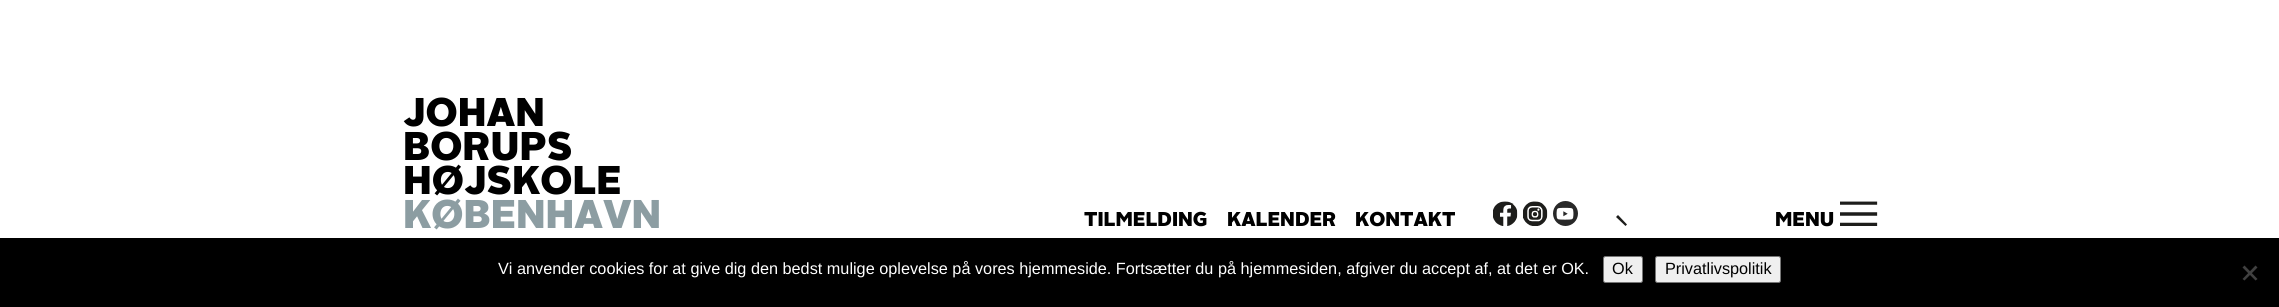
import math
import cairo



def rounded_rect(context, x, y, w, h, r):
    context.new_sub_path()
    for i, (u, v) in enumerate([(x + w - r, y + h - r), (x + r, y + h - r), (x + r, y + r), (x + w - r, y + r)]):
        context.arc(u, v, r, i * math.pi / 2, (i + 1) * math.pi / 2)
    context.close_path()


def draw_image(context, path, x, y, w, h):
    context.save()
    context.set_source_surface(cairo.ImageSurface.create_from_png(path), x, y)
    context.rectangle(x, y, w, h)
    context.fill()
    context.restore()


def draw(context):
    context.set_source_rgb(1, 1, 1)
    context.paint()
    draw_image(context, "images/1.png", 1493, 201, 25, 25)
    draw_image(context, "images/2.png", 1523, 201, 25, 25)
    draw_image(context, "images/3.png", 1553, 201, 25, 25)
    context.set_source_rgb(29 / 255, 29 / 255, 27 / 255)
    context.new_path()
    context.move_to(1616, 217)
    context.line_to(1618, 215)
    context.line_to(1627, 224.5)
    context.line_to(1625.5, 226)
    context.close_path()
    context.fill()
    draw_image(context, "images/4.png", 1840, 201, 38, 25)
    context.set_source_rgb(0, 0, 0)
    context.rectangle(0, 238, 2279, 69)
    context.fill()
    context.set_source_rgb(239 / 255, 239 / 255, 239 / 255)
    rounded_rect(context, 1603.5, 256.5, 39, 26, 2)
    context.fill_preserve()
    context.set_source_rgb(118 / 255, 118 / 255, 118 / 255)
    context.set_line_width(1)
    context.stroke()
    context.set_source_rgb(239 / 255, 239 / 255, 239 / 255)
    rounded_rect(context, 1655.5, 256.5, 125, 26, 2)
    context.fill_preserve()
    context.set_source_rgb(118 / 255, 118 / 255, 118 / 255)
    context.stroke()
    context.set_source_rgb(64 / 255, 64 / 255, 64 / 255)
    context.new_path()
    context.move_to(2255.5, 265.5)
    context.line_to(2257.5, 267.5)
    context.line_to(2244.5, 280.5)
    context.line_to(2242.5, 279)
    context.close_path()
    context.fill()
    context.new_path()
    context.move_to(2242.5, 267.5)
    context.line_to(2244.5, 265.5)
    context.line_to(2257.5, 279)
    context.line_to(2255.5, 280.5)
    context.close_path()
    context.fill()
    context.select_font_face("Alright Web")
    context.set_font_size(40)
    context.set_source_rgb(0, 0, 0)
    context.move_to(403, 126)
    context.show_text("JOHAN")
    context.move_to(403, 160)
    context.show_text("BORUPS")
    context.move_to(403, 194)
    context.show_text("HØJSKOLE")
    context.set_source_rgb(140 / 255, 157 / 255, 162 / 255)
    context.move_to(403, 228)
    context.show_text("KØBENHAVN")
    context.set_font_size(20)
    context.set_source_rgb(0, 0, 0)
    context.move_to(1084, 226)
    context.show_text("TILMELDING")
    context.move_to(1227, 226)
    context.show_text("KALENDER")
    context.move_to(1355, 226)
    context.show_text("KONTAKT")
    context.move_to(1775, 226)
    context.show_text("MENU")
    context.select_font_face("Liberation Sans")
    context.set_font_size(16.25)
    context.set_source_rgb(1, 1, 1)
    context.move_to(498, 274)
    context.show_text("Vi anvender cookies for at give dig den bedst mulige oplevelse på vores hjemmeside. Fortsætter du på hjemmesiden, afgiver du accept af, at det er OK.")
    context.set_source_rgb(0, 0, 0)
    context.move_to(1612, 274)
    context.show_text("Ok")
    context.move_to(1665, 274)
    context.show_text("Privatlivspolitik")


surface = cairo.ImageSurface(cairo.Format.RGB24, 2279, 307)
context = cairo.Context(surface)
options = cairo.FontOptions()
options.set_hint_metrics(cairo.HintMetrics.OFF)
options.set_hint_style(cairo.HintStyle.NONE)
context.set_font_options(options)
context.set_miter_limit(4)
draw(context)
surface.write_to_png("out.png")
